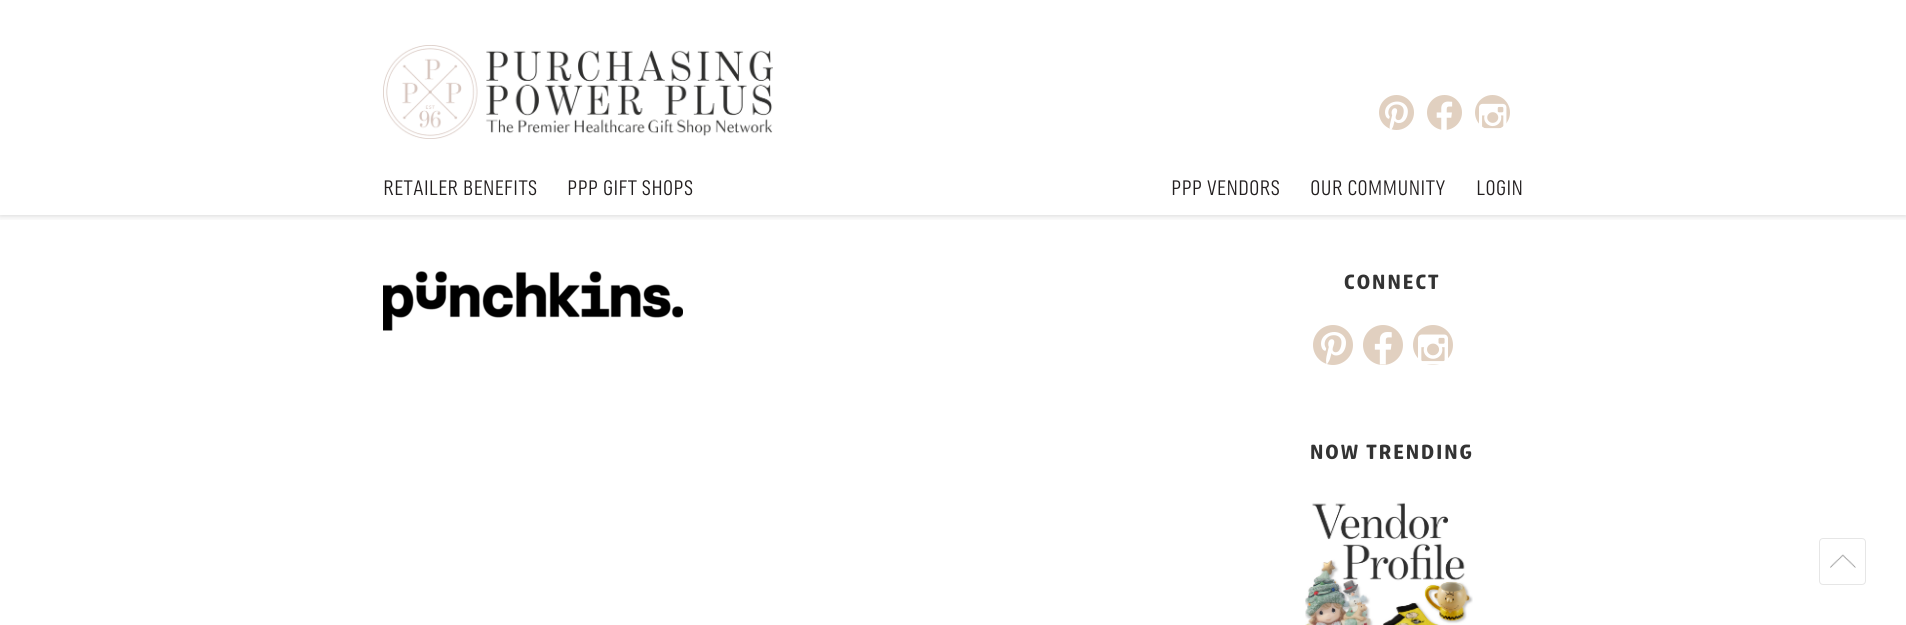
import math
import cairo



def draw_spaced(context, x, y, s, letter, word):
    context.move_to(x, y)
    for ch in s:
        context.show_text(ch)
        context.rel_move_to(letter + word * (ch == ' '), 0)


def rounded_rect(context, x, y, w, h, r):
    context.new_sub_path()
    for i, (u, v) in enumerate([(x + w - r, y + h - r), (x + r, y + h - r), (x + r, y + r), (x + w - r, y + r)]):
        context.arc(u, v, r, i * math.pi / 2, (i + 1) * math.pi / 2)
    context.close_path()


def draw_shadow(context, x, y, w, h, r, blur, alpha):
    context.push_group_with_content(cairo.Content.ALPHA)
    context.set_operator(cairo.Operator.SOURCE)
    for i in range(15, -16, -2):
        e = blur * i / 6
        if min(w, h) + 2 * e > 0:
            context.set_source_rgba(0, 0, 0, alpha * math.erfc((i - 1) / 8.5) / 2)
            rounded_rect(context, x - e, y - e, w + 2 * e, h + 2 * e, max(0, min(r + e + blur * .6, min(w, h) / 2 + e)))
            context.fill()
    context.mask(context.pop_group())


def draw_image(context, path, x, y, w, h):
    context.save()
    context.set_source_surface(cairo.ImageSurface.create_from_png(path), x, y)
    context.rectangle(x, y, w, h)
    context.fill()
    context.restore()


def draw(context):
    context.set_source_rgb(1, 1, 1)
    context.paint()
    context.save()
    context.rectangle(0, 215, 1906, 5)
    context.clip()
    context.set_source_rgb(0, 0, 0)
    draw_shadow(context, 0, 0, 1906, 215, 0, 4, 0.2)
    context.restore()
    draw_image(context, "images/1.png", 383, 45, 390, 94)
    context.set_source_rgb(225 / 255, 208 / 255, 192 / 255)
    context.arc(1396.5, 112.5, 17.5, 0, 2 * math.pi)
    context.fill()
    draw_image(context, "images/2.png", 1385, 101, 23, 29)
    context.arc(1444.5, 112.5, 17.5, 0, 2 * math.pi)
    context.fill()
    draw_image(context, "images/3.png", 1436, 101, 17, 29)
    context.arc(1492.5, 112.5, 17.5, 0, 2 * math.pi)
    context.fill()
    draw_image(context, "images/4.png", 1479, 103, 28, 27)
    draw_image(context, "images/5.png", 383, 271, 300, 60)
    context.arc(1333, 345, 20, 0, 2 * math.pi)
    context.fill()
    draw_image(context, "images/6.png", 1321, 332, 25, 32)
    context.arc(1383, 345, 20, 0, 2 * math.pi)
    context.fill()
    draw_image(context, "images/7.png", 1374, 332, 18, 33)
    context.arc(1433, 345, 20, 0, 2 * math.pi)
    context.fill()
    draw_image(context, "images/8.png", 1418, 334, 30, 31)
    draw_image(context, "images/9.png", 1305, 502, 168, 123)
    draw_image(context, "images/10.png", 1830, 554, 26, 14)
    rounded_rect(context, 1819.5, 538.5, 46, 46, 3.5)
    context.set_source_rgb(230 / 255, 230 / 255, 230 / 255)
    context.set_line_width(1)
    context.stroke()
    context.select_font_face("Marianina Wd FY")
    context.set_font_size(22)
    context.set_source_rgb(35 / 255, 31 / 255, 32 / 255)
    context.move_to(383, 195)
    context.show_text("RETAILER BENEFITS")
    context.move_to(567, 195)
    context.show_text("PPP GIFT SHOPS")
    context.move_to(1171, 195)
    context.show_text("PPP VENDORS")
    context.move_to(1310, 195)
    context.show_text("OUR COMMUNITY")
    context.move_to(1476, 195)
    context.show_text("LOGIN")
    context.select_font_face("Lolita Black")
    context.set_source_rgb(51 / 255, 51 / 255, 51 / 255)
    draw_spaced(context, 1344, 289, "CONNECT", 2, 0)
    draw_spaced(context, 1310, 459, "NOW TRENDING", 2, 0)


surface = cairo.ImageSurface(cairo.Format.RGB24, 1906, 625)
context = cairo.Context(surface)
options = cairo.FontOptions()
options.set_hint_metrics(cairo.HintMetrics.OFF)
options.set_hint_style(cairo.HintStyle.NONE)
context.set_font_options(options)
context.set_miter_limit(4)
draw(context)
surface.write_to_png("out.png")
